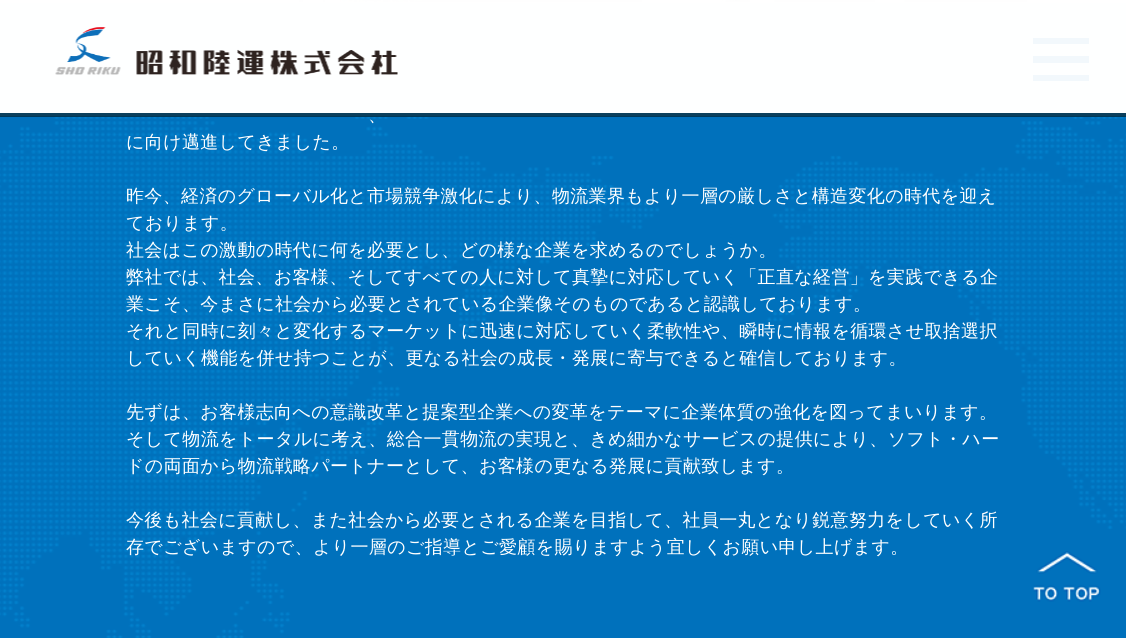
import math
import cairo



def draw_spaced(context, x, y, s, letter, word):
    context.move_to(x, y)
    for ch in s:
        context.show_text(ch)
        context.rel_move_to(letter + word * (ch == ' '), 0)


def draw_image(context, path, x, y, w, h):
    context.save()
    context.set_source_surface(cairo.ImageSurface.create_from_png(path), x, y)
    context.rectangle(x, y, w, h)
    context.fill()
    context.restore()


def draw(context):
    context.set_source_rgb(0, 113 / 255, 188 / 255)
    context.paint()
    draw_image(context, "images/1.png", 0, 34, 1126, 604)
    draw_image(context, "images/3.png", 0, 0, 1126, 3)
    context.set_source_rgba(1, 1, 1, 0.95)
    context.rectangle(0, 0, 1126, 116)
    context.fill()
    context.set_source_rgba(0, 54 / 255, 84 / 255, 0.95)
    context.rectangle(0, 113, 1126, 4)
    context.fill()
    context.set_source_rgba(1, 1, 1, 0.95)
    context.rectangle(0, 2, 1126, 111)
    context.fill()
    draw_image(context, "images/2.png", 55, 27, 343, 48)
    context.set_source_rgb(242 / 255, 248 / 255, 252 / 255)
    context.rectangle(1033, 38, 56, 6)
    context.fill()
    context.rectangle(1033, 56, 56, 7)
    context.fill()
    context.rectangle(1033, 75, 56, 6)
    context.fill()
    draw_image(context, "images/4.png", 1033, 551, 68, 51)
    context.select_font_face("WenQuanYi Zen Hei Medium")
    context.set_font_size(18)
    context.set_source_rgb(1, 1, 1)
    draw_spaced(context, 368, 121, "、", 0.35, 0)
    draw_spaced(context, 126, 148, "に向け邁進してきました。", 0.35, 0)
    draw_spaced(context, 126, 202, "昨今、経済のグローバル化と市場競争激化により、物流業界もより一層の厳しさと構造変化の時代を迎え", 0.35, 0)
    draw_spaced(context, 126, 229, "ております。", 0.35, 0)
    draw_spaced(context, 126, 256, "社会はこの激動の時代に何を必要とし、どの様な企業を求めるのでしょうか。", 0.35, 0)
    draw_spaced(context, 126, 283, "弊社では、社会、お客様、そしてすべての人に対して真摯に対応していく「正直な経営」を実践できる企", 0.35, 0)
    draw_spaced(context, 126, 310, "業こそ、今まさに社会から必要とされている企業像そのものであると認識しております。", 0.35, 0)
    draw_spaced(context, 126, 337, "それと同時に刻々と変化するマーケットに迅速に対応していく柔軟性や、瞬時に情報を循環させ取捨選択", 0.35, 0)
    draw_spaced(context, 126, 364, "していく機能を併せ持つことが、更なる社会の成長・発展に寄与できると確信しております。", 0.35, 0)
    draw_spaced(context, 126, 418, "先ずは、お客様志向への意識改革と提案型企業への変革をテーマに企業体質の強化を図ってまいります。", 0.35, 0)
    draw_spaced(context, 126, 445, "そして物流をトータルに考え、総合一貫物流の実現と、きめ細かなサービスの提供により、ソフト・ハー", 0.35, 0)
    draw_spaced(context, 126, 472, "ドの両面から物流戦略パートナーとして、お客様の更なる発展に貢献致します。", 0.35, 0)
    draw_spaced(context, 126, 526, "今後も社会に貢献し、また社会から必要とされる企業を目指して、社員一丸となり鋭意努力をしていく所", 0.35, 0)
    draw_spaced(context, 126, 553, "存でございますので、より一層のご指導とご愛顧を賜りますよう宜しくお願い申し上げます。", 0.35, 0)


surface = cairo.ImageSurface(cairo.Format.RGB24, 1126, 638)
context = cairo.Context(surface)
options = cairo.FontOptions()
options.set_hint_metrics(cairo.HintMetrics.OFF)
options.set_hint_style(cairo.HintStyle.NONE)
context.set_font_options(options)
context.set_miter_limit(4)
draw(context)
surface.write_to_png("out.png")
